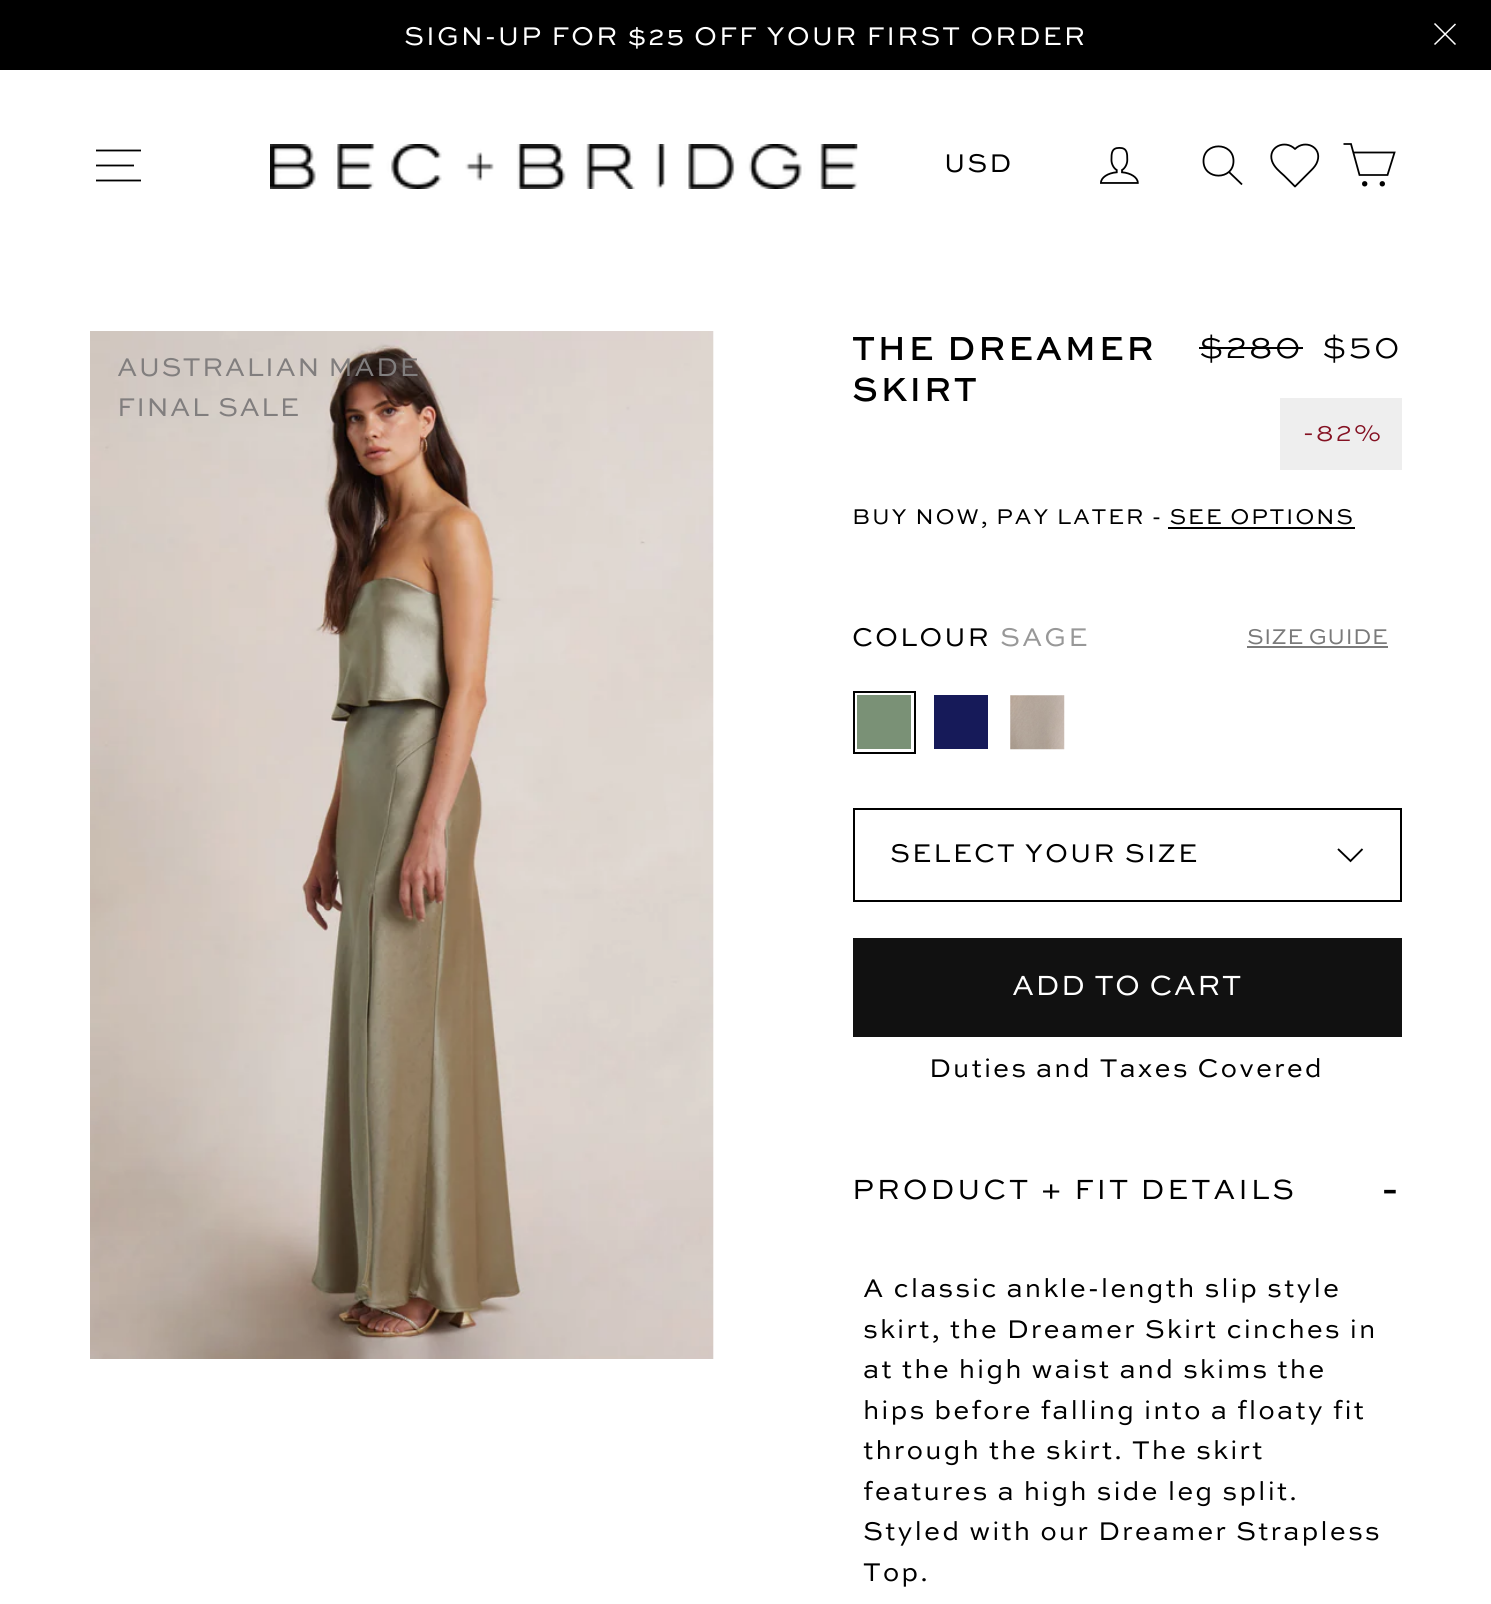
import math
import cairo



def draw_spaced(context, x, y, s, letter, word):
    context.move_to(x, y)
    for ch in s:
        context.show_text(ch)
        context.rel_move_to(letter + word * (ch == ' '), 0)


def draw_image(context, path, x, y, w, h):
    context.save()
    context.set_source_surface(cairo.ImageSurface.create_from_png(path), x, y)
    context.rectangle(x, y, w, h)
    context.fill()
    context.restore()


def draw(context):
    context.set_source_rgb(1, 1, 1)
    context.paint()
    context.set_source_rgb(0, 0, 0)
    context.rectangle(0, 0, 1491, 70)
    context.fill()
    context.new_path()
    context.move_to(1434.5, 23.5)
    context.line_to(1455.5, 44.5)
    context.move_to(1455.5, 24)
    context.line_to(1434.5, 44.5)
    context.set_source_rgb(1, 1, 1)
    context.set_line_width(1.5)
    context.stroke()
    context.new_path()
    context.move_to(96, 150.5)
    context.line_to(141, 150.5)
    context.move_to(96, 165.5)
    context.line_to(134, 165.5)
    context.move_to(96, 180.5)
    context.line_to(141, 180.5)
    context.set_source_rgb(0, 0, 0)
    context.set_line_width(1.8)
    context.stroke()
    draw_image(context, "images/1.png", 270, 144, 588, 45)
    draw_image(context, "images/2.png", 1100, 147, 39, 37)
    context.new_path()
    context.move_to(1233.5, 161)
    context.curve_to(1233.5, 180.5, 1203.5, 180.5, 1203.5, 161)
    context.curve_to(1203.5, 141.5, 1233.5, 141.5, 1233.5, 161)
    context.close_path()
    context.move_to(1242, 184.5)
    context.line_to(1229, 172)
    context.stroke()
    context.new_path()
    context.move_to(1311.5, 170)
    context.curve_to(1314, 167.5, 1316.5, 164.5, 1317.5, 161)
    context.curve_to(1322, 147, 1305, 139, 1295, 149)
    context.curve_to(1285, 139, 1267.5, 147, 1272, 161)
    context.curve_to(1274, 167, 1279.5, 171.5, 1284, 175.5)
    context.line_to(1295, 186.5)
    context.close_path()
    context.set_line_cap(cairo.LineCap.ROUND)
    context.set_line_join(cairo.LineJoin.ROUND)
    context.stroke()
    context.new_path()
    context.move_to(1353.5, 152.5)
    context.line_to(1394.5, 152.5)
    context.line_to(1387.5, 175)
    context.line_to(1359.5, 175)
    context.line_to(1351, 144)
    context.line_to(1343.5, 144)
    context.set_line_cap(cairo.LineCap.BUTT)
    context.set_line_join(cairo.LineJoin.MITER)
    context.stroke()
    context.arc(1364.7, 183.8, 1.8, 0, 2 * math.pi)
    context.fill_preserve()
    context.stroke()
    context.arc(1382.3, 183.8, 1.8, 0, 2 * math.pi)
    context.fill_preserve()
    context.stroke()
    draw_image(context, "images/3.png", 90, 331, 624, 1028)
    context.rectangle(1199, 347, 104, 2)
    context.fill()
    context.set_source_rgb(238 / 255, 238 / 255, 238 / 255)
    context.rectangle(1280, 398, 122, 72)
    context.fill()
    context.set_source_rgb(0, 0, 0)
    context.rectangle(1168, 527, 187, 2)
    context.fill()
    context.set_source_rgb(122 / 255, 122 / 255, 122 / 255)
    context.rectangle(1247, 646, 141, 2)
    context.fill()
    context.set_source_rgb(122 / 255, 145 / 255, 118 / 255)
    context.rectangle(857, 695, 54, 54)
    context.fill()
    context.rectangle(854, 692, 61, 61)
    context.set_source_rgb(0, 0, 0)
    context.set_line_width(2)
    context.stroke()
    context.set_source_rgb(22 / 255, 26 / 255, 89 / 255)
    context.rectangle(934, 695, 54, 54)
    context.fill()
    draw_image(context, "images/4.png", 1010, 695, 55, 55)
    context.rectangle(854, 809, 547, 92)
    context.set_source_rgb(0, 0, 0)
    context.stroke()
    context.new_path()
    context.move_to(1338, 849)
    context.line_to(1350.5, 861)
    context.line_to(1362.5, 849)
    context.set_line_width(1.9)
    context.stroke()
    context.set_source_rgb(17 / 255, 17 / 255, 17 / 255)
    context.rectangle(853, 938, 549, 99)
    context.fill()
    context.select_font_face("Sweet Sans")
    context.set_font_size(27)
    context.set_source_rgb(1, 1, 1)
    draw_spaced(context, 404, 45, "SIGN-UP FOR $25 OFF YOUR FIRST ORDER", 2, 0)
    context.set_source_rgb(0, 0, 0)
    draw_spaced(context, 944, 172, "USD", 2, 0)
    context.set_source_rgb(129 / 255, 126 / 255, 126 / 255)
    draw_spaced(context, 117, 376, "AUSTRALIAN MADE", 1.4, 0)
    draw_spaced(context, 117, 416, "FINAL SALE", 1.4, 0)
    context.select_font_face("Sweet Sans", cairo.FontSlant.NORMAL, cairo.FontWeight.BOLD)
    context.set_font_size(33.75)
    context.set_source_rgb(0, 0, 0)
    draw_spaced(context, 852, 360, "THE DREAMER", 3.4, 0)
    draw_spaced(context, 852, 401, "SKIRT", 3.4, 0)
    context.select_font_face("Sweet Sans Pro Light")
    context.set_font_size(36)
    draw_spaced(context, 1199, 358, "$280", 2, 0)
    draw_spaced(context, 1322, 358, "$50", 2, 0)
    context.set_font_size(27)
    context.set_source_rgb(132 / 255, 17 / 255, 34 / 255)
    draw_spaced(context, 1303, 441, "-82%", 2, 0)
    context.select_font_face("Sweet Sans")
    context.set_font_size(22.5)
    context.set_source_rgb(0, 0, 0)
    draw_spaced(context, 852, 524, "BUY NOW, PAY LATER - SEE OPTIONS", 1.7, 0)
    context.set_font_size(27)
    draw_spaced(context, 852, 646, "COLOUR", 2, 0)
    context.set_source_rgb(152 / 255, 152 / 255, 152 / 255)
    draw_spaced(context, 1000, 646, "SAGE", 2, 0)
    context.set_font_size(22.5)
    context.set_source_rgb(122 / 255, 122 / 255, 122 / 255)
    draw_spaced(context, 1247, 644, "SIZE GUIDE", 0.25, 0)
    context.set_font_size(27)
    context.set_source_rgb(0, 0, 0)
    draw_spaced(context, 890, 862, "SELECT YOUR SIZE", 2, 0)
    context.set_font_size(29.25)
    context.set_source_rgb(1, 1, 1)
    draw_spaced(context, 1012, 995, "ADD TO CART", 1.5, 0)
    context.set_font_size(27)
    context.set_source_rgb(0, 0, 0)
    draw_spaced(context, 929, 1077, "Duties and Taxes Covered", 2, 0)
    context.set_font_size(29.25)
    draw_spaced(context, 852, 1199, "PRODUCT + FIT DETAILS", 2.9, 0)
    context.set_font_size(45)
    draw_spaced(context, 1381, 1203, "-", 2.9, 0)
    context.set_font_size(27)
    draw_spaced(context, 863, 1297, "A classic ankle-length slip style", 2, 0)
    draw_spaced(context, 863, 1338, "skirt, the Dreamer Skirt cinches in", 2, 0)
    draw_spaced(context, 863, 1378, "at the high waist and skims the", 2, 0)
    draw_spaced(context, 863, 1419, "hips before falling into a floaty fit", 2, 0)
    draw_spaced(context, 863, 1459, "through the skirt. The skirt", 2, 0)
    draw_spaced(context, 863, 1500, "features a high side leg split.", 2, 0)
    draw_spaced(context, 863, 1540, "Styled with our Dreamer Strapless", 2, 0)
    draw_spaced(context, 863, 1581, "Top.", 2, 0)


surface = cairo.ImageSurface(cairo.Format.RGB24, 1491, 1604)
context = cairo.Context(surface)
options = cairo.FontOptions()
options.set_hint_metrics(cairo.HintMetrics.OFF)
options.set_hint_style(cairo.HintStyle.NONE)
context.set_font_options(options)
context.set_miter_limit(4)
draw(context)
surface.write_to_png("out.png")
